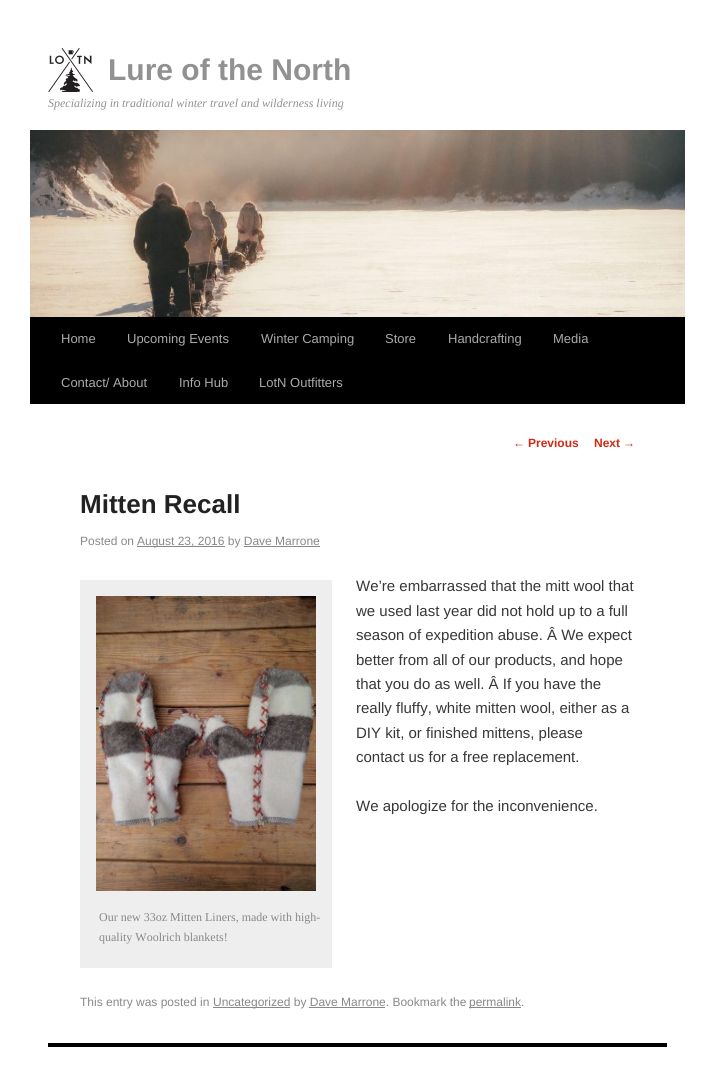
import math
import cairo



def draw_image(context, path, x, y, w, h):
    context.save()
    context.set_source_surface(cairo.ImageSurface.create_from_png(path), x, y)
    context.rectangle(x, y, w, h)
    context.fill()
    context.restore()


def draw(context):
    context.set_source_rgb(1, 1, 1)
    context.paint()
    draw_image(context, "images/1.png", 48, 48, 45, 44)
    draw_image(context, "images/2.png", 30, 130, 655, 187)
    context.set_source_rgb(0, 0, 0)
    context.rectangle(30, 317, 655, 87)
    context.fill()
    context.set_source_rgb(136 / 255, 136 / 255, 136 / 255)
    context.rectangle(137, 546, 88, 1)
    context.fill()
    context.rectangle(244, 546, 76, 1)
    context.fill()
    context.set_source_rgb(238 / 255, 238 / 255, 238 / 255)
    context.rectangle(80, 580, 252, 388)
    context.fill()
    draw_image(context, "images/3.png", 96, 596, 220, 295)
    context.set_source_rgb(136 / 255, 136 / 255, 136 / 255)
    context.rectangle(213, 1007, 77, 1)
    context.fill()
    context.rectangle(469, 1007, 52, 1)
    context.fill()
    context.rectangle(309, 1007, 76, 1)
    context.fill()
    context.set_source_rgb(0, 0, 0)
    context.rectangle(48, 1043, 619, 4)
    context.fill()
    context.select_font_face("Liberation Sans", cairo.FontSlant.NORMAL, cairo.FontWeight.BOLD)
    context.set_font_size(30)
    context.set_source_rgb(145 / 255, 145 / 255, 145 / 255)
    context.move_to(108, 80)
    context.show_text("Lure of the North")
    context.select_font_face("Liberation Serif", cairo.FontSlant.ITALIC)
    context.set_font_size(12)
    context.move_to(48, 107)
    context.show_text("Specializing in traditional winter travel and wilderness living")
    context.select_font_face("Liberation Sans")
    context.set_font_size(13)
    context.set_source_rgb(170 / 255, 170 / 255, 170 / 255)
    context.move_to(61, 343)
    context.show_text("Home")
    context.move_to(127, 343)
    context.show_text("Upcoming Events")
    context.move_to(261, 343)
    context.show_text("Winter Camping")
    context.move_to(385, 343)
    context.show_text("Store")
    context.move_to(448, 343)
    context.show_text("Handcrafting")
    context.move_to(553, 343)
    context.show_text("Media")
    context.move_to(61, 387)
    context.show_text("Contact/ About")
    context.move_to(179, 387)
    context.show_text("Info Hub")
    context.move_to(259, 387)
    context.show_text("LotN Outfitters")
    context.set_font_size(12)
    context.set_source_rgb(211 / 255, 40 / 255, 21 / 255)
    context.move_to(513, 447)
    context.show_text("←")
    context.select_font_face("Liberation Sans", cairo.FontSlant.NORMAL, cairo.FontWeight.BOLD)
    context.move_to(528, 447)
    context.show_text("Previous")
    context.move_to(594, 447)
    context.show_text("Next")
    context.select_font_face("Liberation Sans")
    context.move_to(623, 447)
    context.show_text("→")
    context.select_font_face("Liberation Sans", cairo.FontSlant.NORMAL, cairo.FontWeight.BOLD)
    context.set_font_size(26)
    context.set_source_rgb(34 / 255, 34 / 255, 34 / 255)
    context.move_to(80, 513)
    context.show_text("Mitten Recall")
    context.select_font_face("Liberation Sans")
    context.set_font_size(12)
    context.set_source_rgb(136 / 255, 136 / 255, 136 / 255)
    context.move_to(80, 545)
    context.show_text("Posted on")
    context.move_to(137, 545)
    context.show_text("August 23, 2016 by Dave Marrone")
    context.set_font_size(15)
    context.set_source_rgb(55 / 255, 55 / 255, 55 / 255)
    context.move_to(356, 591)
    context.show_text("We’re embarrassed that the mitt wool that")
    context.move_to(356, 616)
    context.show_text("we used last year did not hold up to a full")
    context.move_to(356, 640)
    context.show_text("season of expedition abuse. Â We expect")
    context.move_to(356, 665)
    context.show_text("better from all of our products, and hope")
    context.move_to(356, 689)
    context.show_text("that you do as well. Â If you have the")
    context.move_to(356, 713)
    context.show_text("really fluffy, white mitten wool, either as a")
    context.move_to(356, 738)
    context.show_text("DIY kit, or finished mittens, please")
    context.move_to(356, 762)
    context.show_text("contact us for a free replacement.")
    context.move_to(356, 811)
    context.show_text("We apologize for the inconvenience.")
    context.select_font_face("Liberation Serif")
    context.set_font_size(12)
    context.set_source_rgb(136 / 255, 136 / 255, 136 / 255)
    context.move_to(99, 921)
    context.show_text("Our new 33oz Mitten Liners, made with high-")
    context.move_to(99, 941)
    context.show_text("quality Woolrich blankets!")
    context.select_font_face("Liberation Sans")
    context.move_to(80, 1006)
    context.show_text("This entry was posted in")
    context.move_to(213, 1006)
    context.show_text("Uncategorized by Dave Marrone. Bookmark the")
    context.move_to(469, 1006)
    context.show_text("permalink.")


surface = cairo.ImageSurface(cairo.Format.RGB24, 715, 1072)
context = cairo.Context(surface)
options = cairo.FontOptions()
options.set_hint_metrics(cairo.HintMetrics.OFF)
options.set_hint_style(cairo.HintStyle.NONE)
context.set_font_options(options)
context.set_miter_limit(4)
draw(context)
surface.write_to_png("out.png")
